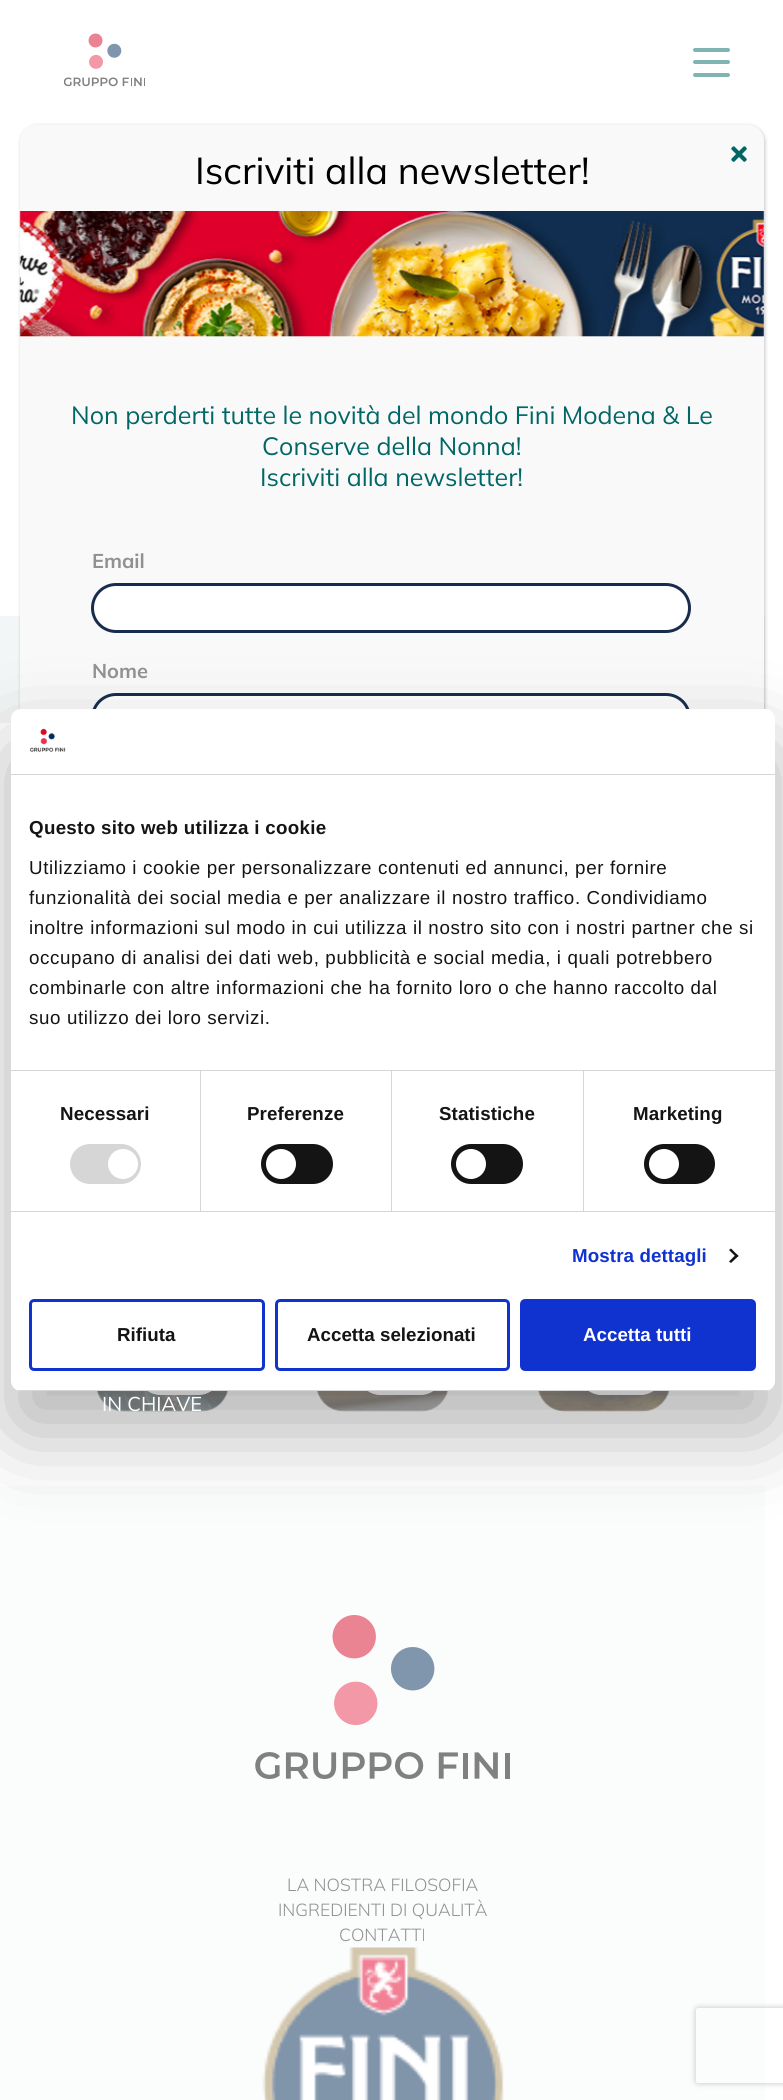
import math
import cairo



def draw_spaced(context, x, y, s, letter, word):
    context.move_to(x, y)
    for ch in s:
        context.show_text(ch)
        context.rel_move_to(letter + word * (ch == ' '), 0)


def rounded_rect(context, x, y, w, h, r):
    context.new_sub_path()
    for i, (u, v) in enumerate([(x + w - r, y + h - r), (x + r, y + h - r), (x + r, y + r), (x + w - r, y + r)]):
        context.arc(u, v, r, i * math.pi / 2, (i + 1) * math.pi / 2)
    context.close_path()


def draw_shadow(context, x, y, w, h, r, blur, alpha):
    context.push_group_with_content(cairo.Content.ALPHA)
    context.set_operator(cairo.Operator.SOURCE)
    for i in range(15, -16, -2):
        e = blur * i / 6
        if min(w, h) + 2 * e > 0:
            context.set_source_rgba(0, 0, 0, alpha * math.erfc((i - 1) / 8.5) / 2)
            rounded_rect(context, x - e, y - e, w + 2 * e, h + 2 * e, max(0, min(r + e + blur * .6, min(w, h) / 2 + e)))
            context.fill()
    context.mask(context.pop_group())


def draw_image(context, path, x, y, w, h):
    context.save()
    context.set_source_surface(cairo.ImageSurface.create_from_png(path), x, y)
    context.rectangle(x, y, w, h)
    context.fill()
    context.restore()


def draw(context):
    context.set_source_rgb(1, 1, 1)
    context.paint()
    context.set_source_rgb(243 / 255, 246 / 255, 246 / 255)
    context.rectangle(0, 616, 765, 107)
    context.fill()
    context.set_source_rgb(2 / 255, 2 / 255, 2 / 255)
    draw_shadow(context, 21, 126, 744, 955, 16, 2, 0.23)
    context.set_source_rgb(249 / 255, 249 / 255, 249 / 255)
    rounded_rect(context, 20, 125, 744, 955, 16)
    context.fill()
    draw_image(context, "images/1.png", 731, 146, 16, 16)
    draw_image(context, "images/2.png", 19, 211, 745, 126)
    context.set_source_rgb(1, 1, 1)
    rounded_rect(context, 92.5, 584.5, 597, 47, 23.5)
    context.fill_preserve()
    context.set_source_rgb(24 / 255, 45 / 255, 77 / 255)
    context.set_line_width(3)
    context.stroke()
    context.set_source_rgb(1, 1, 1)
    rounded_rect(context, 92.5, 694.5, 597, 47, 23.5)
    context.fill_preserve()
    context.set_source_rgb(24 / 255, 45 / 255, 77 / 255)
    context.stroke()
    draw_image(context, "images/5.png", 97, 1391, 132, 21)
    context.set_source_rgb(1, 1, 1)
    rounded_rect(context, 138.5, 1350.5, 82, 44, 22)
    context.fill_preserve()
    context.set_line_width(1)
    context.stroke()
    draw_image(context, "images/6.png", 317, 1391, 132, 21)
    rounded_rect(context, 358.5, 1350.5, 84, 44, 22)
    context.fill_preserve()
    context.stroke()
    draw_image(context, "images/7.png", 538, 1391, 132, 21)
    rounded_rect(context, 579.5, 1350.5, 83, 44, 22)
    context.fill_preserve()
    context.stroke()
    context.set_source_rgb(251 / 255, 252 / 255, 252 / 255)
    context.rectangle(0, 1486, 765, 614)
    context.fill()
    context.set_source_rgb(0, 0, 0)
    draw_shadow(context, 11, 749, 764, 682, 10, 42.5, 0.3)
    context.set_source_rgb(1, 1, 1)
    rounded_rect(context, 11, 709, 764, 682, 10)
    context.fill()
    context.set_source_rgb(214 / 255, 214 / 255, 214 / 255)
    context.rectangle(11, 774, 764, 1)
    context.fill()
    draw_image(context, "images/3.png", 30, 728, 36, 25)
    context.rectangle(11, 1070, 764, 1)
    context.fill()
    context.rectangle(11, 1211, 764, 1)
    context.fill()
    context.rectangle(200, 1071, 1, 140)
    context.fill()
    rounded_rect(context, 70, 1144, 71, 40, 20)
    context.fill()
    context.set_source_rgb(1, 1, 1)
    context.arc(123, 1164, 15, 0, 2 * math.pi)
    context.fill()
    context.set_source_rgb(214 / 255, 214 / 255, 214 / 255)
    context.rectangle(391, 1071, 1, 140)
    context.fill()
    context.set_source_rgb(20 / 255, 20 / 255, 20 / 255)
    rounded_rect(context, 261, 1144, 72, 40, 20)
    context.fill()
    context.set_source_rgb(1, 1, 1)
    context.arc(281, 1164, 15, 0, 2 * math.pi)
    context.fill()
    context.set_source_rgb(214 / 255, 214 / 255, 214 / 255)
    context.rectangle(583, 1071, 1, 140)
    context.fill()
    context.set_source_rgb(20 / 255, 20 / 255, 20 / 255)
    rounded_rect(context, 451, 1144, 72, 40, 20)
    context.fill()
    context.set_source_rgb(1, 1, 1)
    context.arc(471, 1164, 15, 0, 2 * math.pi)
    context.fill()
    context.set_source_rgb(20 / 255, 20 / 255, 20 / 255)
    rounded_rect(context, 644, 1144, 71, 40, 20)
    context.fill()
    context.set_source_rgb(1, 1, 1)
    context.arc(664, 1164, 15, 0, 2 * math.pi)
    context.fill()
    context.set_source_rgb(20 / 255, 20 / 255, 20 / 255)
    context.new_path()
    context.move_to(731, 1248.5)
    context.line_to(738.5, 1256)
    context.line_to(736.5, 1257.5)
    context.line_to(729, 1250)
    context.close_path()
    context.fill()
    context.new_path()
    context.move_to(736.5, 1254)
    context.line_to(738.5, 1256)
    context.line_to(731, 1263)
    context.line_to(729, 1261.5)
    context.close_path()
    context.fill()
    context.save()
    rounded_rect(context, 11, 709, 764, 682, 10)
    context.clip()
    context.set_source_rgb(214 / 255, 214 / 255, 214 / 255)
    context.rectangle(11, 1390, 764, 1)
    context.fill()
    context.restore()
    rounded_rect(context, 30.5, 1300.5, 233, 69, 3.5)
    context.set_source_rgb(16 / 255, 50 / 255, 207 / 255)
    context.set_line_width(3)
    context.stroke()
    rounded_rect(context, 276.5, 1300.5, 232, 69, 3.5)
    context.stroke()
    rounded_rect(context, 521.5, 1300.5, 233, 69, 3.5)
    context.fill_preserve()
    context.stroke()
    draw_image(context, "images/4.png", 64, 33, 81, 54)
    context.set_source_rgb(128 / 255, 179 / 255, 179 / 255)
    rounded_rect(context, 693, 48, 37, 4, 2)
    context.fill()
    rounded_rect(context, 693, 60, 37, 4, 2)
    context.fill()
    rounded_rect(context, 693, 73, 37, 4, 2)
    context.fill()
    draw_image(context, "images/8.png", 255, 1615, 255, 164)
    draw_image(context, "images/9.png", 262, 1947, 242, 153)
    context.save()
    context.set_fill_rule(cairo.FillRule.EVEN_ODD)
    context.new_path()
    context.move_to(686, 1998)
    context.line_to(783, 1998)
    context.line_to(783, 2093)
    context.line_to(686, 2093)
    context.close_path()
    context.move_to(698.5, 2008)
    context.line_to(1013.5, 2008)
    context.curve_to(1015, 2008, 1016, 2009, 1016, 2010.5)
    context.line_to(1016, 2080.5)
    context.curve_to(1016, 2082, 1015, 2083, 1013.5, 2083)
    context.line_to(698.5, 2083)
    context.curve_to(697, 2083, 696, 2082, 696, 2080.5)
    context.line_to(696, 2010.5)
    context.curve_to(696, 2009, 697, 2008, 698.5, 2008)
    context.close_path()
    context.clip()
    context.set_source_rgb(192 / 255, 192 / 255, 192 / 255)
    draw_shadow(context, 696, 2008, 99, 75, 2.5, 3, 1)
    context.restore()
    context.select_font_face("Mulish")
    context.set_font_size(37.5)
    context.set_source_rgb(0, 0, 0)
    context.move_to(195, 184)
    context.show_text("Iscriviti alla newsletter!")
    context.set_font_size(25)
    context.set_source_rgb(0, 102 / 255, 102 / 255)
    context.move_to(71, 424)
    context.show_text("Non perderti tutte le novità del mondo Fini Modena & Le")
    context.move_to(262, 455)
    context.show_text("Conserve della Nonna!")
    context.move_to(260, 486)
    context.show_text("Iscriviti alla newsletter!")
    context.select_font_face("Mulish", cairo.FontSlant.NORMAL, cairo.FontWeight.BOLD)
    context.set_font_size(20)
    context.set_source_rgb(145 / 255, 145 / 255, 145 / 255)
    context.move_to(92, 568)
    context.show_text("Email")
    context.move_to(92, 678)
    context.show_text("Nome")
    context.select_font_face("Liberation Sans", cairo.FontSlant.NORMAL, cairo.FontWeight.BOLD)
    context.set_font_size(18.75)
    context.set_source_rgb(20 / 255, 20 / 255, 20 / 255)
    draw_spaced(context, 29, 834, "Questo sito web utilizza i cookie", 0.3, 0)
    context.select_font_face("Liberation Sans")
    draw_spaced(context, 29, 874, "Utilizziamo i cookie per personalizzare contenuti ed annunci, per fornire", 0.62, 0)
    draw_spaced(context, 29, 904, "funzionalità dei social media e per analizzare il nostro traffico. Condividiamo", 0.62, 0)
    draw_spaced(context, 29, 934, "inoltre informazioni sul modo in cui utilizza il nostro sito con i nostri partner che si", 0.62, 0)
    draw_spaced(context, 29, 964, "occupano di analisi dei dati web, pubblicità e social media, i quali potrebbero", 0.62, 0)
    draw_spaced(context, 29, 994, "combinarle con altre informazioni che ha fornito loro o che hanno raccolto dal", 0.62, 0)
    draw_spaced(context, 29, 1024, "suo utilizzo dei loro servizi.", 0.62, 0)
    context.select_font_face("Liberation Sans", cairo.FontSlant.NORMAL, cairo.FontWeight.BOLD)
    draw_spaced(context, 60, 1120, "Necessari", 0.1, 0)
    draw_spaced(context, 247, 1120, "Preferenze", 0.1, 0)
    draw_spaced(context, 439, 1120, "Statistiche", 0.1, 0)
    draw_spaced(context, 633, 1120, "Marketing", 0.1, 0)
    context.set_source_rgb(16 / 255, 50 / 255, 207 / 255)
    draw_spaced(context, 572, 1262, "Mostra dettagli", 0.1, 0)
    context.set_source_rgb(20 / 255, 20 / 255, 20 / 255)
    context.move_to(117, 1341)
    context.show_text("Rifiuta")
    context.move_to(307, 1341)
    context.show_text("Accetta selezionati")
    context.set_source_rgb(1, 1, 1)
    context.move_to(583, 1341)
    context.show_text("Accetta tutti")
    context.select_font_face("Mulish")
    context.set_font_size(20)
    context.move_to(102, 1411)
    context.show_text("IN CHIAVE")
    context.select_font_face("Mulish ExtraLight")
    context.set_font_size(17.5)
    context.set_source_rgb(145 / 255, 145 / 255, 145 / 255)
    context.move_to(287, 1891)
    context.show_text("LA NOSTRA FILOSOFIA")
    context.move_to(278, 1916)
    context.show_text("INGREDIENTI DI QUALITÀ")
    context.move_to(339, 1941)
    context.show_text("CONTATTI")


surface = cairo.ImageSurface(cairo.Format.RGB24, 783, 2100)
context = cairo.Context(surface)
options = cairo.FontOptions()
options.set_hint_metrics(cairo.HintMetrics.OFF)
options.set_hint_style(cairo.HintStyle.NONE)
context.set_font_options(options)
context.set_miter_limit(4)
draw(context)
surface.write_to_png("out.png")
